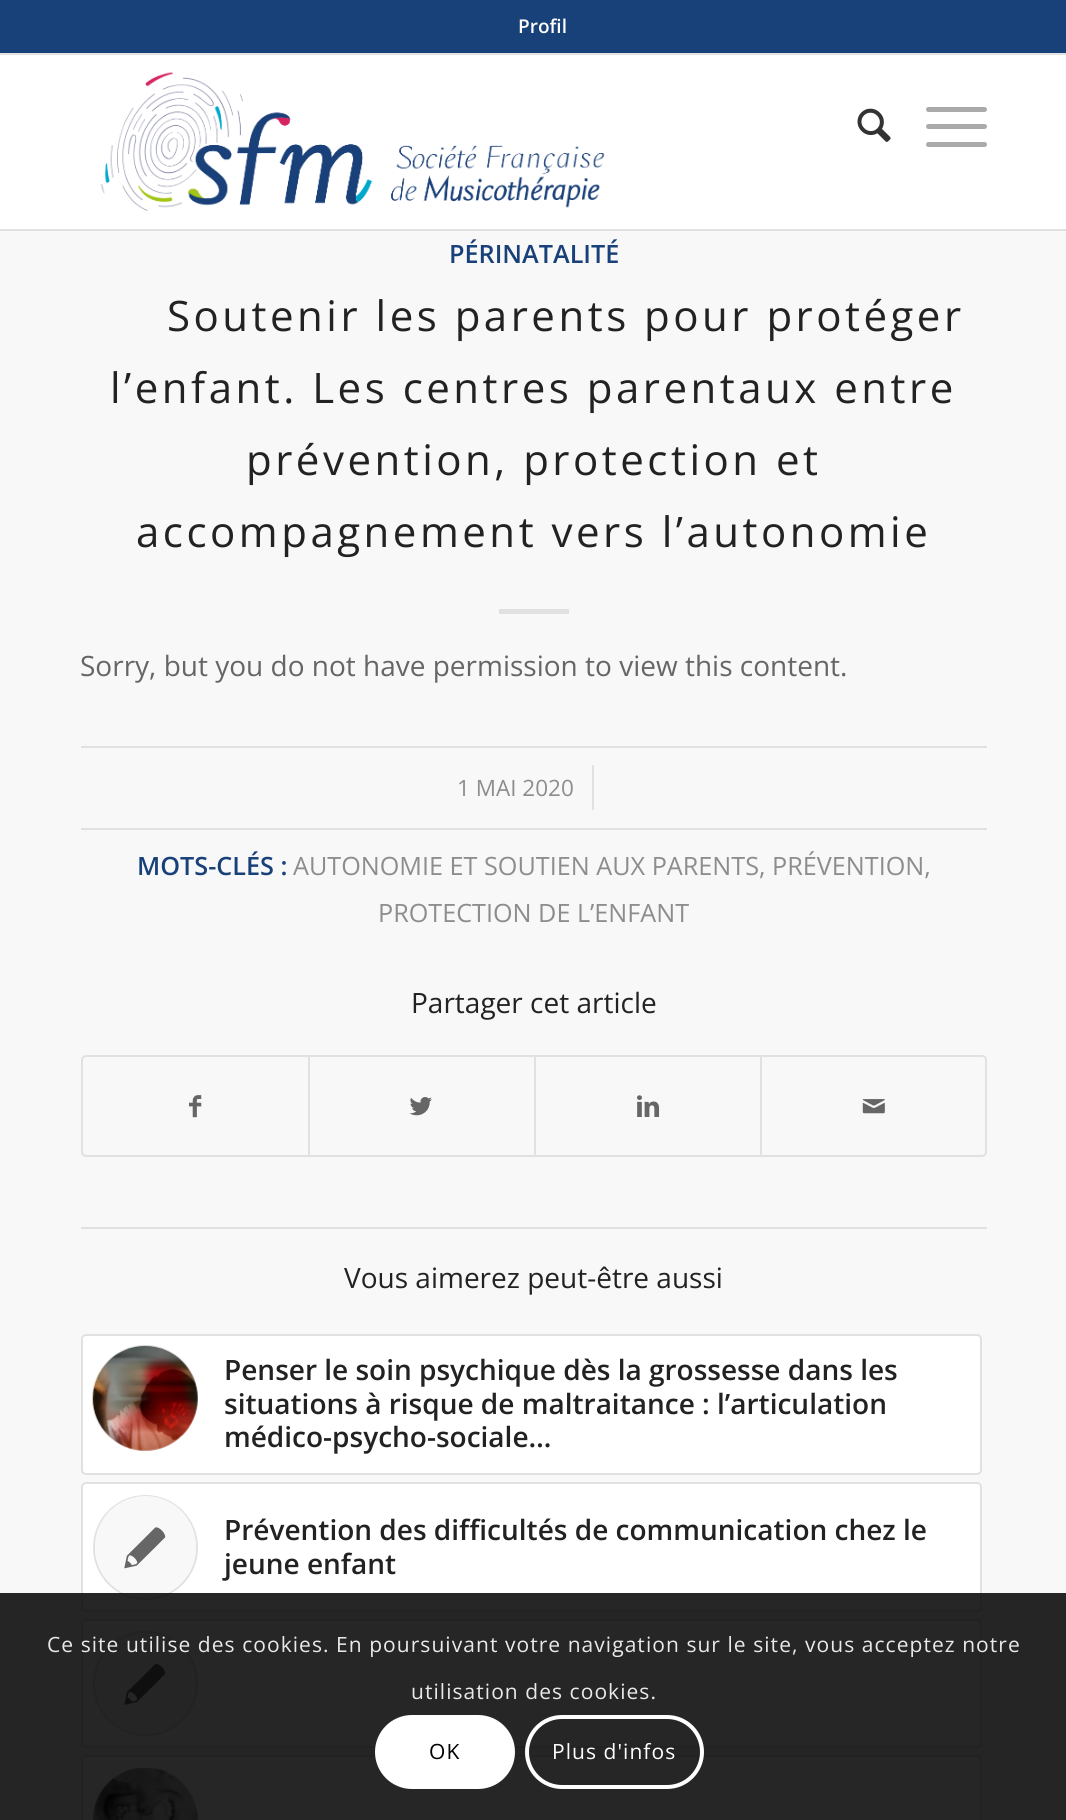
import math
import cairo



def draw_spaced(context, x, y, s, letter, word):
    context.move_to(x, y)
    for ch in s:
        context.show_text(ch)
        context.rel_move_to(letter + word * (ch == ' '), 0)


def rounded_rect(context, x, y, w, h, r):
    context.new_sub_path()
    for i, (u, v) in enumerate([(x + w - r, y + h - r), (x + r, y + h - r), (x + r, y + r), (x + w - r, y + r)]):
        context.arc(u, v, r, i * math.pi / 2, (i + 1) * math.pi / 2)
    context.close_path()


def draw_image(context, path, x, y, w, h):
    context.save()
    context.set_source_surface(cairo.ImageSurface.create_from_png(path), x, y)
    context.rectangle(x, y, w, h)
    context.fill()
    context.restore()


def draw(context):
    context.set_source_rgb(248 / 255, 248 / 255, 248 / 255)
    context.paint()
    context.set_source_rgb(25 / 255, 65 / 255, 121 / 255)
    context.rectangle(0, 0, 1066, 53)
    context.fill()
    context.set_source_rgb(225 / 255, 225 / 255, 225 / 255)
    context.rectangle(0, 53, 1066, 2)
    context.fill()
    context.set_source_rgb(1, 1, 1)
    context.rectangle(0, 55, 1066, 174)
    context.fill()
    context.set_source_rgb(225 / 255, 225 / 255, 225 / 255)
    context.rectangle(0, 229, 1066, 2)
    context.fill()
    draw_image(context, "images/1.png", 100, 72, 505, 139)
    draw_image(context, "images/2.png", 857, 108, 34, 34)
    context.set_source_rgb(170 / 255, 170 / 255, 170 / 255)
    rounded_rect(context, 926, 124, 61, 5, 2.5)
    context.fill()
    rounded_rect(context, 926, 107, 61, 5, 2.5)
    context.fill()
    rounded_rect(context, 926, 142, 61, 5, 2.5)
    context.fill()
    context.set_source_rgb(225 / 255, 225 / 255, 225 / 255)
    context.rectangle(499, 609, 70, 5)
    context.fill()
    context.rectangle(81, 746, 906, 2)
    context.fill()
    context.rectangle(81, 828, 906, 2)
    context.fill()
    context.rectangle(592, 765, 2, 45)
    context.fill()
    rounded_rect(context, 82, 1056, 904, 100, 4)
    context.stroke()
    draw_image(context, "images/3.png", 189, 1095, 13, 23)
    context.rectangle(308, 1057, 2, 98)
    context.fill()
    draw_image(context, "images/4.png", 409, 1097, 23, 19)
    context.rectangle(534, 1057, 2, 98)
    context.fill()
    draw_image(context, "images/5.png", 637, 1095, 23, 22)
    context.rectangle(760, 1057, 2, 98)
    context.fill()
    draw_image(context, "images/6.png", 862, 1099, 23, 15)
    context.rectangle(81, 1227, 906, 2)
    context.fill()
    context.set_source_rgb(1, 1, 1)
    rounded_rect(context, 82, 1335, 899, 139, 4)
    context.fill_preserve()
    context.set_source_rgb(225 / 255, 225 / 255, 225 / 255)
    context.stroke()
    draw_image(context, "images/7.png", 92, 1345, 106, 106)
    context.set_source_rgb(1, 1, 1)
    rounded_rect(context, 82, 1483, 899, 128, 4)
    context.fill_preserve()
    context.set_source_rgb(225 / 255, 225 / 255, 225 / 255)
    context.stroke()
    context.arc(145.5, 1547.5, 51.5, 0, 2 * math.pi)
    context.stroke()
    context.set_source_rgb(248 / 255, 248 / 255, 248 / 255)
    rounded_rect(context, 95, 1496, 101, 102, 50.5)
    context.fill()
    draw_image(context, "images/8.png", 124, 1527, 42, 42)
    context.set_source_rgb(1, 1, 1)
    rounded_rect(context, 82, 1620, 899, 127, 4)
    context.fill_preserve()
    context.set_source_rgb(225 / 255, 225 / 255, 225 / 255)
    context.stroke()
    context.arc(145.5, 1683.5, 51.5, 0, 2 * math.pi)
    context.stroke()
    context.set_source_rgb(248 / 255, 248 / 255, 248 / 255)
    context.arc(145.5, 1683.5, 50.5, 0, 2 * math.pi)
    context.fill()
    draw_image(context, "images/9.png", 124, 1663, 42, 42)
    context.set_source_rgb(1, 1, 1)
    rounded_rect(context, 82, 1756, 899, 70, 4)
    context.fill_preserve()
    context.set_source_rgb(225 / 255, 225 / 255, 225 / 255)
    context.stroke()
    draw_image(context, "images/10.png", 93, 1768, 105, 52)
    context.set_source_rgba(0, 0, 0, 0.85)
    context.rectangle(0, 1593, 1066, 227)
    context.fill()
    context.set_source_rgb(1, 1, 1)
    rounded_rect(context, 375, 1715, 140, 74, 37)
    context.fill()
    rounded_rect(context, 527, 1717, 175, 70, 35)
    context.set_line_width(4)
    context.stroke()
    context.select_font_face("Open Sans SemiBold")
    context.set_font_size(19)
    context.move_to(518, 33)
    context.show_text("Profil")
    context.set_font_size(25.2)
    context.set_source_rgb(25 / 255, 65 / 255, 121 / 255)
    context.move_to(449, 263)
    context.show_text("PÉRINATALITÉ")
    context.select_font_face("Open Sans")
    context.set_font_size(42)
    context.set_source_rgb(34 / 255, 34 / 255, 34 / 255)
    draw_spaced(context, 167, 331, "Soutenir les parents pour protéger", 3.5, 0)
    draw_spaced(context, 110, 403, "l’enfant. Les centres parentaux entre", 3.5, 0)
    draw_spaced(context, 246, 475, "prévention, protection et", 3.5, 0)
    draw_spaced(context, 136, 547, "accompagnement vers l’autonomie", 3.5, 0)
    context.set_font_size(28)
    context.set_source_rgb(102 / 255, 102 / 255, 102 / 255)
    context.move_to(80, 676)
    context.show_text("Sorry, but you do not have permission to view this content.")
    context.set_font_size(22.5)
    context.set_source_rgb(141 / 255, 141 / 255, 141 / 255)
    context.move_to(457, 796)
    context.show_text("1 MAI 2020")
    context.select_font_face("Open Sans SemiBold")
    context.set_font_size(25.2)
    context.set_source_rgb(25 / 255, 65 / 255, 121 / 255)
    context.move_to(137, 875)
    context.show_text("MOTS-CLÉS :")
    context.select_font_face("Open Sans")
    context.set_source_rgb(141 / 255, 141 / 255, 141 / 255)
    context.move_to(293, 875)
    context.show_text("AUTONOMIE ET SOUTIEN AUX PARENTS, PRÉVENTION,")
    context.move_to(378, 922)
    context.show_text("PROTECTION DE L’ENFANT")
    context.set_font_size(28)
    context.set_source_rgb(34 / 255, 34 / 255, 34 / 255)
    context.move_to(411, 1013)
    context.show_text("Partager cet article")
    context.move_to(344, 1288)
    context.show_text("Vous aimerez peut-être aussi")
    context.select_font_face("Open Sans SemiBold")
    context.move_to(224, 1380)
    context.show_text("Penser le soin psychique dès la grossesse dans les")
    context.move_to(224, 1414)
    context.show_text("situations à risque de maltraitance : l’articulation")
    context.move_to(224, 1447)
    context.show_text("médico-psycho-sociale…")
    context.move_to(224, 1540)
    context.show_text("Prévention des difficultés de communication chez le")
    context.move_to(224, 1574)
    context.show_text("jeune enfant")
    context.select_font_face("Open Sans")
    context.set_font_size(21)
    context.set_source_rgb(233 / 255, 233 / 255, 233 / 255)
    draw_spaced(context, 47, 1652, "Ce site utilise des cookies. En poursuivant votre navigation sur le site, vous acceptez notre", 1.05, 0)
    draw_spaced(context, 411, 1699, "utilisation des cookies.", 1.05, 0)
    context.set_source_rgb(0, 0, 0)
    draw_spaced(context, 429, 1759, "OK", 1.05, 0)
    context.set_source_rgb(1, 1, 1)
    draw_spaced(context, 552, 1759, "Plus d'infos", 1.05, 0)


surface = cairo.ImageSurface(cairo.Format.RGB24, 1066, 1820)
context = cairo.Context(surface)
options = cairo.FontOptions()
options.set_hint_metrics(cairo.HintMetrics.OFF)
options.set_hint_style(cairo.HintStyle.NONE)
context.set_font_options(options)
context.set_miter_limit(4)
draw(context)
surface.write_to_png("out.png")
